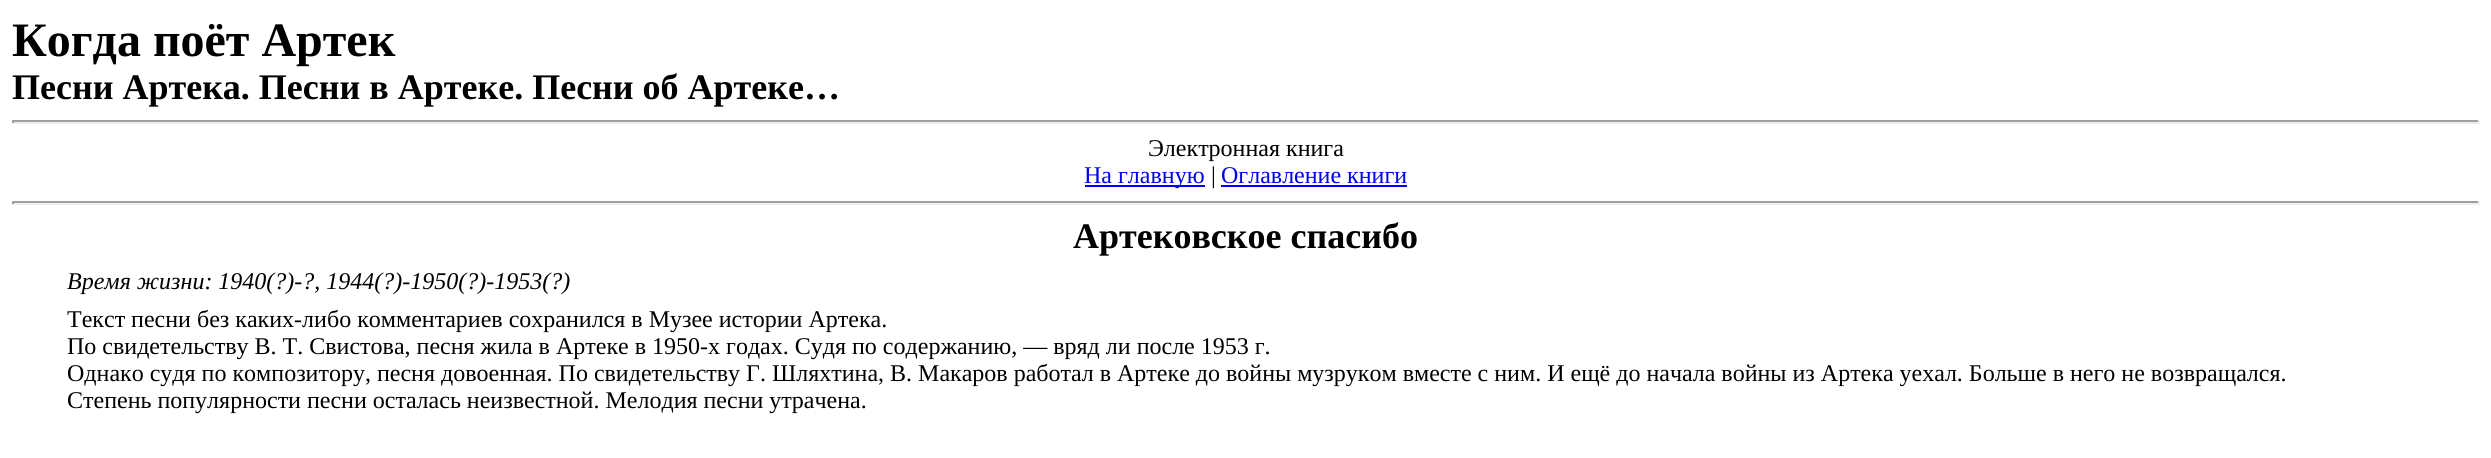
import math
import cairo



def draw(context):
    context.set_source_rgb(1, 1, 1)
    context.paint()
    context.set_source_rgb(159 / 255, 159 / 255, 159 / 255)
    context.rectangle(12, 120, 2468, 2)
    context.fill()
    context.set_source_rgb(238 / 255, 238 / 255, 238 / 255)
    context.rectangle(2478, 120, 2, 3)
    context.fill()
    context.rectangle(12, 122, 2468, 2)
    context.fill()
    context.set_source_rgb(159 / 255, 159 / 255, 159 / 255)
    context.rectangle(12, 120, 2, 3)
    context.fill()
    context.set_source_rgb(0, 0, 238 / 255)
    context.rectangle(1085, 185, 120, 2)
    context.fill()
    context.rectangle(1221, 185, 186, 2)
    context.fill()
    context.set_source_rgb(159 / 255, 159 / 255, 159 / 255)
    context.rectangle(12, 201, 2468, 2)
    context.fill()
    context.set_source_rgb(238 / 255, 238 / 255, 238 / 255)
    context.rectangle(2478, 201, 2, 3)
    context.fill()
    context.rectangle(12, 203, 2468, 2)
    context.fill()
    context.set_source_rgb(159 / 255, 159 / 255, 159 / 255)
    context.rectangle(12, 201, 2, 3)
    context.fill()
    context.select_font_face("Liberation Serif", cairo.FontSlant.NORMAL, cairo.FontWeight.BOLD)
    context.set_font_size(48)
    context.set_source_rgb(0, 0, 0)
    context.move_to(12, 56)
    context.show_text("Когда поёт Артек")
    context.set_font_size(36)
    context.move_to(12, 99)
    context.show_text("Песни Артека. Песни в Артеке. Песни об Артеке…")
    context.select_font_face("Liberation Serif")
    context.set_font_size(24)
    context.move_to(1148, 156)
    context.show_text("Электронная книга")
    context.set_source_rgb(0, 0, 238 / 255)
    context.move_to(1084, 183)
    context.show_text("На главную")
    context.set_source_rgb(0, 0, 0)
    context.move_to(1211, 183)
    context.show_text("|")
    context.set_source_rgb(0, 0, 238 / 255)
    context.move_to(1221, 183)
    context.show_text("Оглавление книги")
    context.select_font_face("Liberation Serif", cairo.FontSlant.NORMAL, cairo.FontWeight.BOLD)
    context.set_font_size(36)
    context.set_source_rgb(0, 0, 0)
    context.move_to(1073, 248)
    context.show_text("Артековское спасибо")
    context.select_font_face("Liberation Serif", cairo.FontSlant.ITALIC)
    context.set_font_size(24)
    context.move_to(67, 289)
    context.show_text("Время жизни: 1940(?)-?, 1944(?)-1950(?)-1953(?)")
    context.select_font_face("Liberation Serif")
    context.move_to(67, 327)
    context.show_text("Текст песни без каких-либо комментариев сохранился в Музее истории Артека.")
    context.move_to(67, 354)
    context.show_text("По свидетельству В. Т. Свистова, песня жила в Артеке в 1950-х годах. Судя по содержанию, — вряд ли после 1953 г.")
    context.move_to(67, 381)
    context.show_text("Однако судя по композитору, песня довоенная. По свидетельству Г. Шляхтина, В. Макаров работал в Артеке до войны музруком вместе с ним. И ещё до начала войны из Артека уехал. Больше в него не возвращался.")
    context.move_to(67, 408)
    context.show_text("Степень популярности песни осталась неизвестной. Мелодия песни утрачена.")


surface = cairo.ImageSurface(cairo.Format.RGB24, 2491, 458)
context = cairo.Context(surface)
options = cairo.FontOptions()
options.set_hint_metrics(cairo.HintMetrics.OFF)
options.set_hint_style(cairo.HintStyle.NONE)
context.set_font_options(options)
context.set_miter_limit(4)
draw(context)
surface.write_to_png("out.png")
